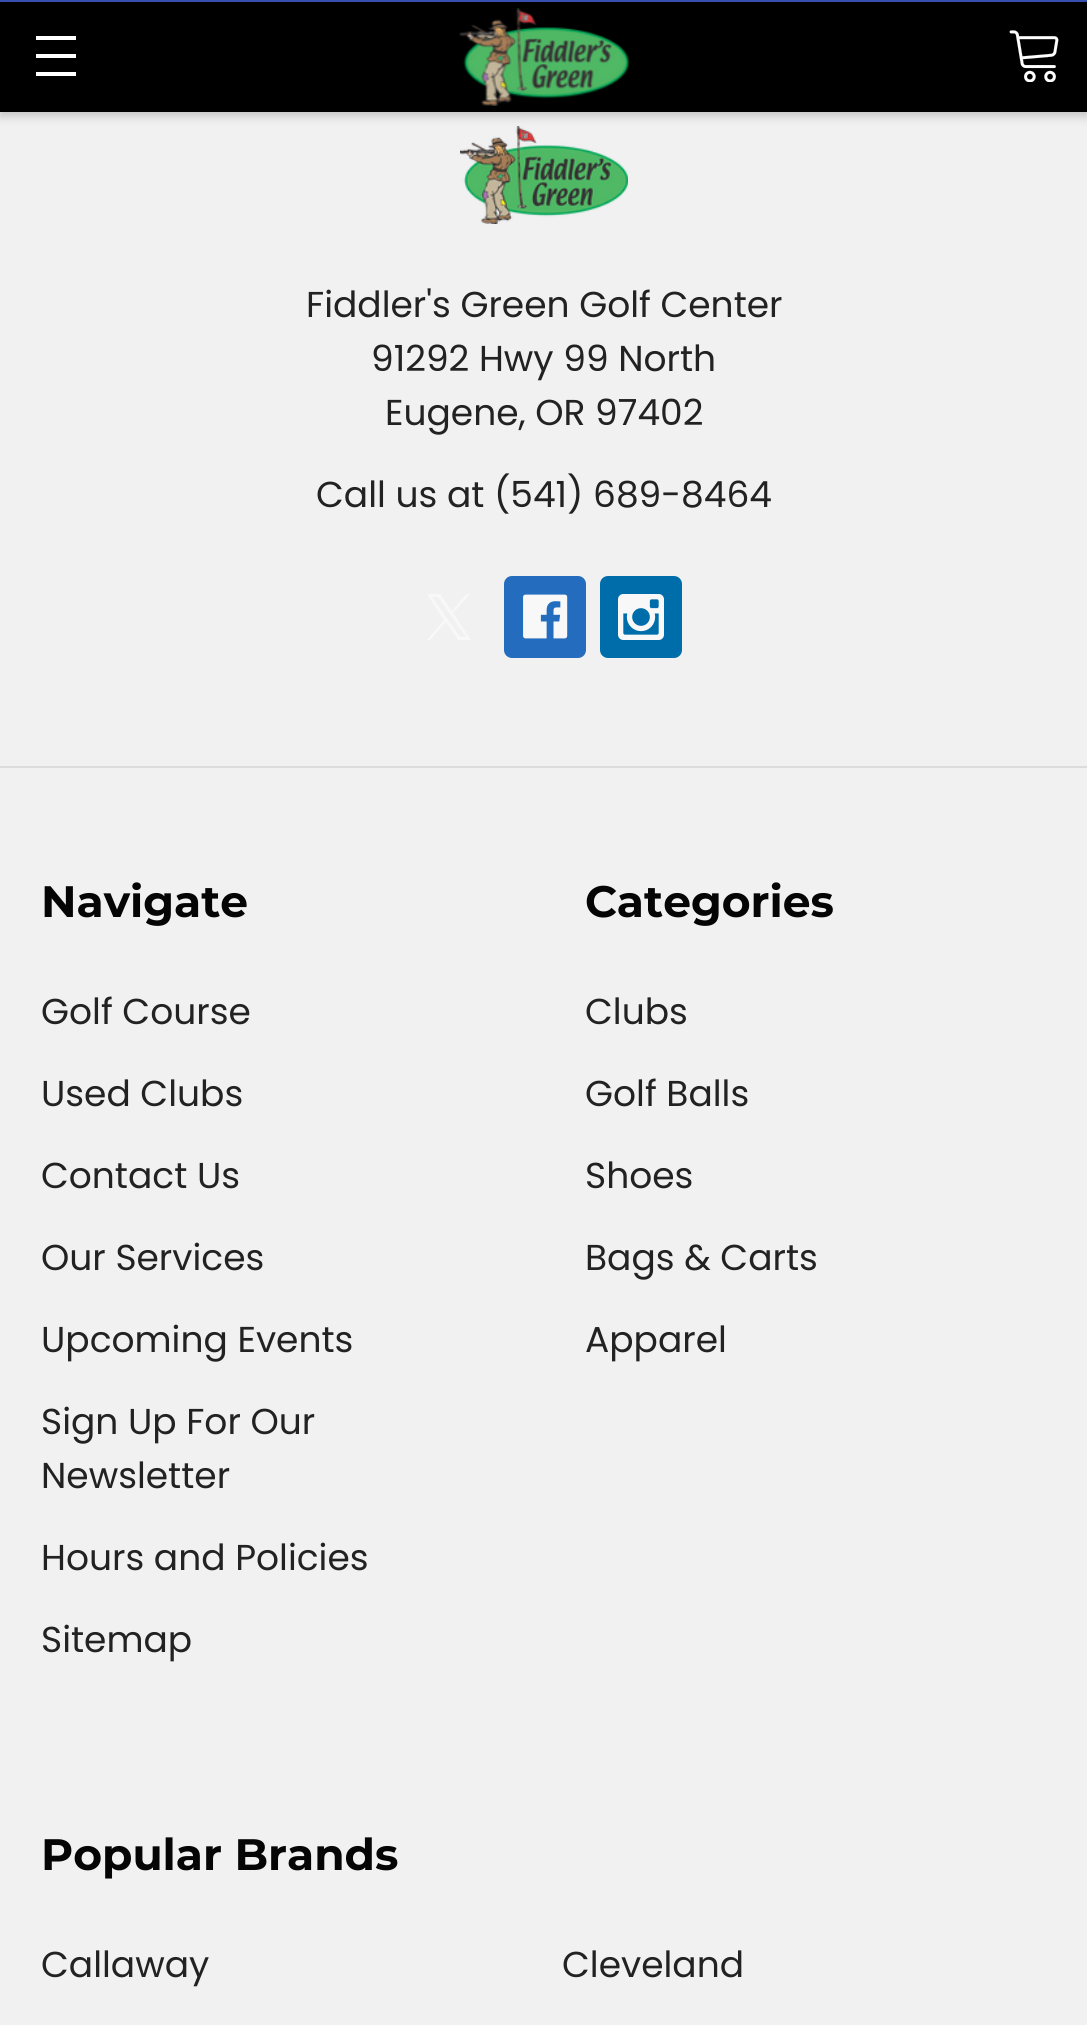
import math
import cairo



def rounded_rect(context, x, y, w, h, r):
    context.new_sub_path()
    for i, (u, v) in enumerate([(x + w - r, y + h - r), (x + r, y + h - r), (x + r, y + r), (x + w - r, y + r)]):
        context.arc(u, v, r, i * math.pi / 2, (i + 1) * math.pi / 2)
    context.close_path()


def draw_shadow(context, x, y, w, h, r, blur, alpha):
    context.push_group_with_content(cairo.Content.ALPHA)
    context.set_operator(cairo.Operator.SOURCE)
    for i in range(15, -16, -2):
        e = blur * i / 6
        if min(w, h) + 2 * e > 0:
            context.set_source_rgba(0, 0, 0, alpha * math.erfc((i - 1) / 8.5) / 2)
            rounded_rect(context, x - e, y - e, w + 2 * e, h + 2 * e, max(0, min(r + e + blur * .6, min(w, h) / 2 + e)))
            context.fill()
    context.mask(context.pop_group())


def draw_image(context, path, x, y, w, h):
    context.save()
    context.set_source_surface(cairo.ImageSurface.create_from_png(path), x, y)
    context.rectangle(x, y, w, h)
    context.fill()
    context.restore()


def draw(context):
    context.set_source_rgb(241 / 255, 241 / 255, 242 / 255)
    context.paint()
    draw_image(context, "images/3.png", 460, 126, 168, 98)
    context.set_source_rgb(0, 0, 0)
    draw_shadow(context, 0, 4, 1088, 112, 0, 5, 0.2)
    context.set_source_rgb(0, 0, 0)
    context.rectangle(0, 2, 1087, 110)
    context.fill()
    context.set_source_rgb(56 / 255, 79 / 255, 178 / 255)
    context.rectangle(0, 0, 1087, 2)
    context.fill()
    context.set_source_rgb(1, 1, 1)
    context.rectangle(36, 54, 40, 4)
    context.fill()
    context.rectangle(36, 36, 40, 4)
    context.fill()
    context.rectangle(36, 72, 40, 4)
    context.fill()
    draw_image(context, "images/1.png", 459, 8, 170, 98)
    draw_image(context, "images/2.png", 1009, 30, 50, 52)
    context.set_source_rgb(220 / 255, 220 / 255, 220 / 255)
    context.rectangle(0, 766, 1087, 2)
    context.fill()
    context.set_source_rgb(248 / 255, 248 / 255, 248 / 255)
    context.new_path()
    context.move_to(453, 613)
    context.line_to(470, 594)
    context.line_to(466, 594)
    context.line_to(452, 611)
    context.line_to(440, 594)
    context.line_to(427, 594)
    context.line_to(444, 620)
    context.line_to(427, 640)
    context.line_to(430, 640)
    context.line_to(446, 622)
    context.line_to(458, 640)
    context.line_to(471, 640)
    context.close_path()
    context.move_to(448, 620)
    context.line_to(432, 597)
    context.line_to(438, 597)
    context.line_to(466, 637)
    context.line_to(460, 637)
    context.close_path()
    context.fill()
    context.set_source_rgb(35 / 255, 108 / 255, 190 / 255)
    rounded_rect(context, 504, 576, 82, 82, 8)
    context.fill()
    draw_image(context, "images/4.png", 523, 594, 45, 45)
    context.set_source_rgb(0, 109 / 255, 171 / 255)
    rounded_rect(context, 600, 576, 82, 82, 8)
    context.fill()
    draw_image(context, "images/5.png", 618, 594, 46, 46)
    context.select_font_face("Poppins")
    context.set_font_size(36)
    context.set_source_rgb(34 / 255, 34 / 255, 34 / 255)
    context.move_to(306, 317)
    context.show_text("Fiddler's Green Golf Center")
    context.move_to(371, 371)
    context.show_text("91292 Hwy 99 North")
    context.move_to(385, 425)
    context.show_text("Eugene, OR 97402")
    context.move_to(316, 507)
    context.show_text("Call us at (541) 689-8464")
    context.select_font_face("Montserrat Thin")
    context.set_font_size(44)
    context.set_source_rgb(5 / 255, 5 / 255, 5 / 255)
    context.move_to(41, 917)
    context.show_text("Navigate")
    context.select_font_face("Poppins")
    context.set_font_size(36)
    context.set_source_rgb(34 / 255, 34 / 255, 34 / 255)
    context.move_to(41, 1024)
    context.show_text("Golf Course")
    context.move_to(41, 1106)
    context.show_text("Used Clubs")
    context.move_to(41, 1188)
    context.show_text("Contact Us")
    context.move_to(41, 1270)
    context.show_text("Our Services")
    context.move_to(41, 1352)
    context.show_text("Upcoming Events")
    context.move_to(41, 1434)
    context.show_text("Sign Up For Our")
    context.move_to(41, 1488)
    context.show_text("Newsletter")
    context.move_to(41, 1570)
    context.show_text("Hours and Policies")
    context.move_to(41, 1652)
    context.show_text("Sitemap")
    context.select_font_face("Montserrat Thin")
    context.set_font_size(44)
    context.set_source_rgb(5 / 255, 5 / 255, 5 / 255)
    context.move_to(585, 917)
    context.show_text("Categories")
    context.select_font_face("Poppins")
    context.set_font_size(36)
    context.set_source_rgb(34 / 255, 34 / 255, 34 / 255)
    context.move_to(585, 1024)
    context.show_text("Clubs")
    context.move_to(585, 1106)
    context.show_text("Golf Balls")
    context.move_to(585, 1188)
    context.show_text("Shoes")
    context.move_to(585, 1270)
    context.show_text("Bags & Carts")
    context.move_to(585, 1352)
    context.show_text("Apparel")
    context.select_font_face("Montserrat Thin")
    context.set_font_size(44)
    context.set_source_rgb(5 / 255, 5 / 255, 5 / 255)
    context.move_to(41, 1870)
    context.show_text("Popular Brands")
    context.select_font_face("Poppins")
    context.set_font_size(36)
    context.set_source_rgb(34 / 255, 34 / 255, 34 / 255)
    context.move_to(41, 1977)
    context.show_text("Callaway")
    context.move_to(562, 1977)
    context.show_text("Cleveland")


surface = cairo.ImageSurface(cairo.Format.RGB24, 1087, 2025)
context = cairo.Context(surface)
options = cairo.FontOptions()
options.set_hint_metrics(cairo.HintMetrics.OFF)
options.set_hint_style(cairo.HintStyle.NONE)
context.set_font_options(options)
context.set_miter_limit(4)
draw(context)
surface.write_to_png("out.png")
